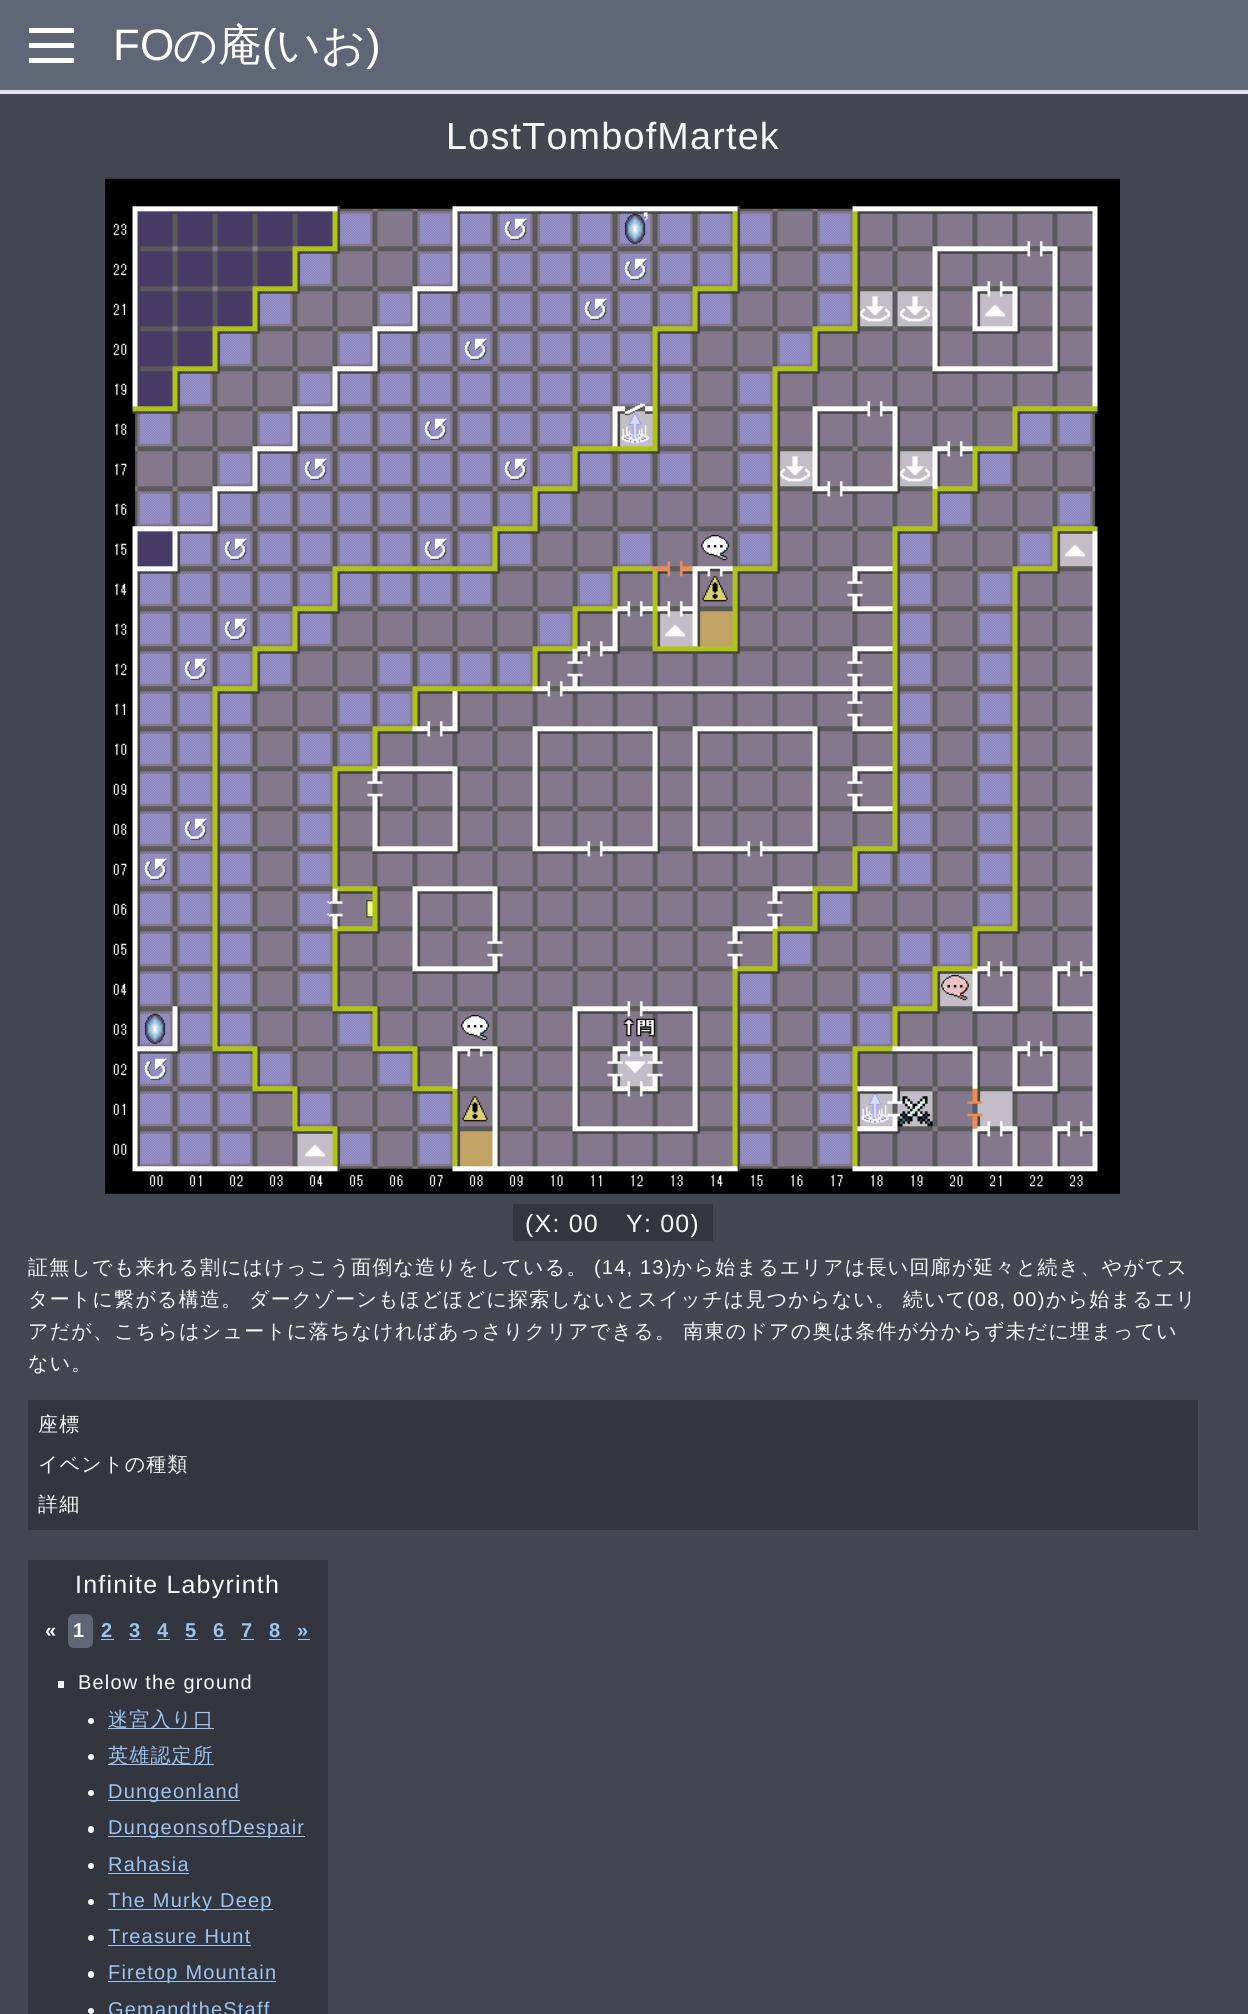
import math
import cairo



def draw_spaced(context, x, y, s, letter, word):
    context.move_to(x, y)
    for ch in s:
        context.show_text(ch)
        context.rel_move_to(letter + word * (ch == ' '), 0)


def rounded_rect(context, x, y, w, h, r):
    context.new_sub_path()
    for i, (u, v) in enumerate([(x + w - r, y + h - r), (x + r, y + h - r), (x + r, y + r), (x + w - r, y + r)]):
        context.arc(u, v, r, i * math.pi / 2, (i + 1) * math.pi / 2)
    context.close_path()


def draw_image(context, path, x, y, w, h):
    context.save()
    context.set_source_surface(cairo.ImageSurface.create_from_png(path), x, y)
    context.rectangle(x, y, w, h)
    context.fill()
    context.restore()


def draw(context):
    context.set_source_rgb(66 / 255, 71 / 255, 82 / 255)
    context.paint()
    context.set_source_rgb(95 / 255, 102 / 255, 117 / 255)
    context.rectangle(0, 0, 1248, 90)
    context.fill()
    context.set_source_rgb(222 / 255, 226 / 255, 230 / 255)
    context.rectangle(0, 90, 1248, 4)
    context.fill()
    context.set_source_rgb(1, 1, 1)
    context.rectangle(29, 28, 45, 5)
    context.fill()
    context.rectangle(29, 43, 45, 5)
    context.fill()
    context.rectangle(29, 58, 45, 5)
    context.fill()
    draw_image(context, "images/1.png", 105, 178, 1015, 1016)
    context.set_source_rgb(51 / 255, 54 / 255, 63 / 255)
    context.rectangle(513, 1204, 200, 37)
    context.fill()
    context.rectangle(28, 1400, 1170, 130)
    context.fill()
    context.rectangle(28, 1560, 300, 454)
    context.fill()
    context.set_source_rgb(95 / 255, 102 / 255, 117 / 255)
    rounded_rect(context, 68, 1614, 25, 34, 6)
    context.fill()
    context.set_source_rgb(156 / 255, 196 / 255, 240 / 255)
    context.rectangle(101, 1639, 13, 1)
    context.fill()
    context.rectangle(129, 1639, 12, 1)
    context.fill()
    context.rectangle(158, 1639, 12, 1)
    context.fill()
    context.rectangle(185, 1639, 13, 1)
    context.fill()
    context.rectangle(214, 1639, 12, 1)
    context.fill()
    context.rectangle(241, 1639, 13, 1)
    context.fill()
    context.rectangle(269, 1639, 12, 1)
    context.fill()
    context.rectangle(298, 1639, 12, 1)
    context.fill()
    context.set_source_rgb(248 / 255, 249 / 255, 250 / 255)
    context.rectangle(58, 1681, 6, 7)
    context.fill()
    context.arc(91, 1721, 3, 0, 2 * math.pi)
    context.fill()
    context.set_source_rgb(156 / 255, 196 / 255, 240 / 255)
    context.rectangle(108, 1728, 106, 1)
    context.fill()
    context.set_source_rgb(248 / 255, 249 / 255, 250 / 255)
    context.arc(91, 1757, 3, 0, 2 * math.pi)
    context.fill()
    context.set_source_rgb(156 / 255, 196 / 255, 240 / 255)
    context.rectangle(108, 1764, 106, 1)
    context.fill()
    context.set_source_rgb(248 / 255, 249 / 255, 250 / 255)
    context.arc(91, 1793, 3, 0, 2 * math.pi)
    context.fill()
    context.set_source_rgb(156 / 255, 196 / 255, 240 / 255)
    context.rectangle(108, 1800, 132, 1)
    context.fill()
    context.set_source_rgb(248 / 255, 249 / 255, 250 / 255)
    rounded_rect(context, 88, 1826, 6, 7, 3)
    context.fill()
    context.set_source_rgb(156 / 255, 196 / 255, 240 / 255)
    context.rectangle(108, 1836, 197, 1)
    context.fill()
    context.set_source_rgb(248 / 255, 249 / 255, 250 / 255)
    context.arc(91, 1866, 3, 0, 2 * math.pi)
    context.fill()
    context.set_source_rgb(156 / 255, 196 / 255, 240 / 255)
    context.rectangle(108, 1873, 81, 1)
    context.fill()
    context.set_source_rgb(248 / 255, 249 / 255, 250 / 255)
    context.arc(91, 1902, 3, 0, 2 * math.pi)
    context.fill()
    context.set_source_rgb(156 / 255, 196 / 255, 240 / 255)
    context.rectangle(108, 1909, 165, 1)
    context.fill()
    context.set_source_rgb(248 / 255, 249 / 255, 250 / 255)
    context.arc(91, 1938, 3, 0, 2 * math.pi)
    context.fill()
    context.set_source_rgb(156 / 255, 196 / 255, 240 / 255)
    context.rectangle(108, 1945, 143, 1)
    context.fill()
    context.set_source_rgb(248 / 255, 249 / 255, 250 / 255)
    rounded_rect(context, 88, 1971, 6, 7, 3)
    context.fill()
    context.set_source_rgb(156 / 255, 196 / 255, 240 / 255)
    context.rectangle(108, 1981, 168, 1)
    context.fill()
    context.set_source_rgb(248 / 255, 249 / 255, 250 / 255)
    context.arc(91, 2011, 3, 0, 2 * math.pi)
    context.fill()
    context.select_font_face("Liberation Sans")
    context.set_font_size(44)
    context.set_source_rgb(1, 1, 1)
    context.move_to(113, 60)
    context.show_text("FO")
    context.select_font_face("WenQuanYi Zen Hei Medium")
    context.move_to(173, 60)
    context.show_text("の庵")
    context.select_font_face("Liberation Sans")
    context.move_to(262, 60)
    context.show_text("(")
    context.select_font_face("WenQuanYi Zen Hei Medium")
    context.move_to(276, 60)
    context.show_text("いお")
    context.select_font_face("Liberation Sans")
    context.move_to(366, 60)
    context.show_text(")")
    context.set_font_size(37.75)
    context.set_source_rgb(248 / 255, 249 / 255, 250 / 255)
    draw_spaced(context, 446, 149, "LostTombofMartek", 1.2, 0)
    context.set_font_size(25)
    draw_spaced(context, 525, 1232, "(X: 00", 1.2, 0)
    draw_spaced(context, 626, 1232, "Y: 00)", 1.2, 0)
    context.select_font_face("WenQuanYi Zen Hei Medium")
    context.set_font_size(20)
    draw_spaced(context, 28, 1274, "証無しでも来れる割にはけっこう面倒な造りをしている。", 1.2, 0)
    context.select_font_face("Liberation Sans")
    draw_spaced(context, 594, 1274, "(14, 13)", 1.2, 0)
    context.select_font_face("WenQuanYi Zen Hei Medium")
    draw_spaced(context, 672, 1274, "から始まるエリアは長い回廊が延々と続き、やがてス", 1.2, 0)
    draw_spaced(context, 28, 1306, "タートに繋がる構造。", 1.2, 0)
    draw_spaced(context, 249, 1306, "ダークゾーンもほどほどに探索しないとスイッチは見つからない。", 1.2, 0)
    draw_spaced(context, 903, 1306, "続いて", 1.2, 0)
    context.select_font_face("Liberation Sans")
    draw_spaced(context, 967, 1306, "(08, 00)", 1.2, 0)
    context.select_font_face("WenQuanYi Zen Hei Medium")
    draw_spaced(context, 1046, 1306, "から始まるエリ", 1.2, 0)
    draw_spaced(context, 28, 1338, "アだが、こちらはシュートに落ちなければあっさりクリアできる。 南東のドアの奥は条件が分からず未だに埋まってい", 1.2, 0)
    draw_spaced(context, 28, 1370, "ない。", 1.2, 0)
    draw_spaced(context, 38, 1431, "座標", 1.2, 0)
    draw_spaced(context, 38, 1471, "イベントの種類", 1.2, 0)
    draw_spaced(context, 38, 1511, "詳細", 1.2, 0)
    context.select_font_face("Liberation Sans")
    context.set_font_size(25)
    draw_spaced(context, 75, 1593, "Infinite Labyrinth", 1.2, 0)
    context.select_font_face("Liberation Sans", cairo.FontSlant.NORMAL, cairo.FontWeight.BOLD)
    context.set_font_size(20)
    context.set_source_rgb(1, 1, 1)
    draw_spaced(context, 45, 1637, "«", 1.2, 0)
    draw_spaced(context, 73, 1637, "1", 1.2, 0)
    context.set_source_rgb(156 / 255, 196 / 255, 240 / 255)
    draw_spaced(context, 101, 1637, "2", 1.2, 0)
    draw_spaced(context, 129, 1637, "3", 1.2, 0)
    draw_spaced(context, 157, 1637, "4", 1.2, 0)
    draw_spaced(context, 185, 1637, "5", 1.2, 0)
    draw_spaced(context, 213, 1637, "6", 1.2, 0)
    draw_spaced(context, 241, 1637, "7", 1.2, 0)
    draw_spaced(context, 269, 1637, "8", 1.2, 0)
    draw_spaced(context, 297, 1637, "»", 1.2, 0)
    context.select_font_face("Liberation Sans")
    context.set_source_rgb(248 / 255, 249 / 255, 250 / 255)
    draw_spaced(context, 78, 1689, "Below the ground", 1.2, 0)
    context.select_font_face("WenQuanYi Zen Hei Medium")
    context.set_source_rgb(156 / 255, 196 / 255, 240 / 255)
    draw_spaced(context, 108, 1726, "迷宮入り口", 1.2, 0)
    draw_spaced(context, 108, 1762, "英雄認定所", 1.2, 0)
    context.select_font_face("Liberation Sans")
    draw_spaced(context, 108, 1798, "Dungeonland", 1.2, 0)
    draw_spaced(context, 108, 1834, "DungeonsofDespair", 1.2, 0)
    draw_spaced(context, 108, 1871, "Rahasia", 1.2, 0)
    draw_spaced(context, 108, 1907, "The Murky Deep", 1.2, 0)
    draw_spaced(context, 108, 1943, "Treasure Hunt", 1.2, 0)
    draw_spaced(context, 108, 1979, "Firetop Mountain", 1.2, 0)
    draw_spaced(context, 108, 2016, "GemandtheStaff", 1.2, 0)


surface = cairo.ImageSurface(cairo.Format.RGB24, 1248, 2014)
context = cairo.Context(surface)
options = cairo.FontOptions()
options.set_hint_metrics(cairo.HintMetrics.OFF)
options.set_hint_style(cairo.HintStyle.NONE)
context.set_font_options(options)
context.set_miter_limit(4)
draw(context)
surface.write_to_png("out.png")
